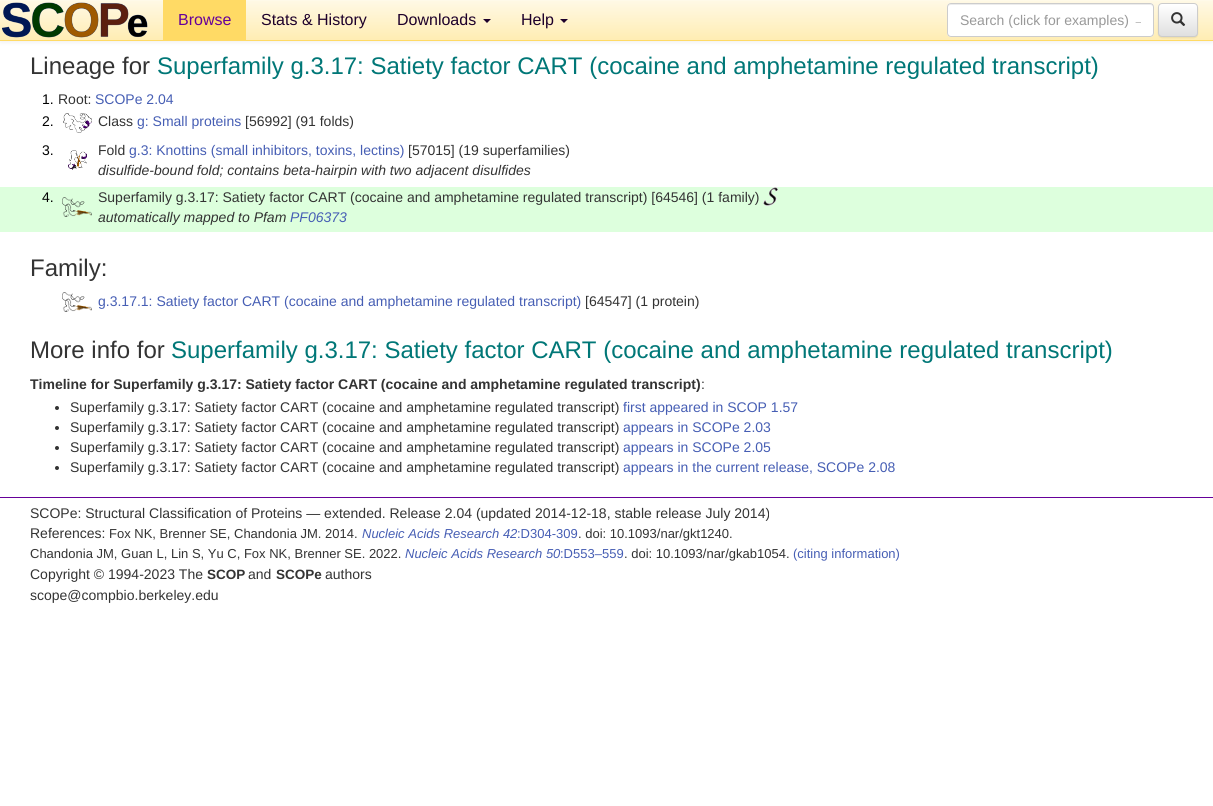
import math
import cairo



def rounded_rect(context, x, y, w, h, r):
    context.new_sub_path()
    for i, (u, v) in enumerate([(x + w - r, y + h - r), (x + r, y + h - r), (x + r, y + r), (x + w - r, y + r)]):
        context.arc(u, v, r, i * math.pi / 2, (i + 1) * math.pi / 2)
    context.close_path()


def draw_shadow(context, x, y, w, h, r, blur, alpha):
    context.push_group_with_content(cairo.Content.ALPHA)
    context.set_operator(cairo.Operator.SOURCE)
    for i in range(15, -16, -2):
        e = blur * i / 6
        if min(w, h) + 2 * e > 0:
            context.set_source_rgba(0, 0, 0, alpha * math.erfc((i - 1) / 8.5) / 2)
            rounded_rect(context, x - e, y - e, w + 2 * e, h + 2 * e, max(0, min(r + e + blur * .6, min(w, h) / 2 + e)))
            context.fill()
    context.mask(context.pop_group())


def draw_image(context, path, x, y, w, h):
    context.save()
    context.set_source_surface(cairo.ImageSurface.create_from_png(path), x, y)
    context.rectangle(x, y, w, h)
    context.fill()
    context.restore()


def draw(context):
    context.set_source_rgb(1, 1, 1)
    context.paint()
    context.set_source_rgb(0, 0, 0)
    draw_shadow(context, 0, 1, 1213, 41, 0, 2.5, 0.07)
    gradient = cairo.LinearGradient(607, 0, 607, 40)
    gradient.add_color_stop_rgba(0, 1, 249 / 255, 230 / 255, 1)
    gradient.add_color_stop_rgba(1, 1, 237 / 255, 179 / 255, 1)
    context.set_source(gradient)
    context.rectangle(0, 1, 1213, 39)
    context.fill()
    context.set_source_rgb(1, 250 / 255, 233 / 255)
    context.rectangle(0, 0, 1213, 1)
    context.fill()
    context.set_source_rgb(1, 218 / 255, 101 / 255)
    context.rectangle(0, 40, 1213, 1)
    context.fill()
    draw_image(context, "images/1.png", 2, 2, 146, 36)
    context.rectangle(163, 0, 83, 40)
    context.fill()
    context.set_source_rgb(29 / 255, 0, 43 / 255)
    context.new_path()
    context.move_to(483, 19)
    context.line_to(491, 19)
    context.line_to(487, 23)
    context.close_path()
    context.fill()
    context.new_path()
    context.move_to(560, 19)
    context.line_to(568, 19)
    context.line_to(564, 23)
    context.close_path()
    context.fill()
    context.set_source_rgb(1, 1, 1)
    rounded_rect(context, 947, 3, 207, 34, 4)
    context.fill()
    context.set_source_rgb(236 / 255, 236 / 255, 236 / 255)
    context.new_path()
    context.move_to(951, 5)
    context.line_to(1150, 5)
    context.curve_to(1152, 5, 1153, 6, 1153, 8)
    context.curve_to(1153, 6, 1152, 4, 1150, 4)
    context.line_to(951, 4)
    context.curve_to(949, 4, 948, 6, 948, 8)
    context.curve_to(948, 6, 949, 5, 951, 5)
    context.close_path()
    context.fill()
    rounded_rect(context, 947.5, 3.5, 206, 33, 3.5)
    context.set_source_rgb(204 / 255, 204 / 255, 204 / 255)
    context.set_line_width(1)
    context.stroke()
    context.set_source_rgb(0, 0, 0)
    draw_shadow(context, 1158, 4, 40, 34, 4, 0.5, 0.07)
    context.save()
    rounded_rect(context, 1158, 3, 40, 34, 4)
    context.clip()
    gradient = cairo.LinearGradient(1178, 4, 1178, 36)
    gradient.add_color_stop_rgba(0, 1, 1, 1, 1)
    gradient.add_color_stop_rgba(1, 224 / 255, 224 / 255, 224 / 255, 1)
    context.set_source(gradient)
    context.rectangle(1158, 4, 40, 32)
    context.fill()
    context.restore()
    rounded_rect(context, 1158.5, 3.5, 39, 33, 3.5)
    context.set_source_rgb(204 / 255, 204 / 255, 204 / 255)
    context.stroke()
    draw_image(context, "images/2.png", 1171, 12, 15, 14)
    draw_image(context, "images/3.png", 63, 113, 29, 20)
    draw_image(context, "images/4.png", 68, 150, 19, 20)
    context.set_source_rgb(221 / 255, 1, 221 / 255)
    context.rectangle(0, 187, 1213, 45)
    context.fill()
    draw_image(context, "images/5.png", 62, 197, 30, 20)
    draw_image(context, "images/6.png", 763, 187, 15, 19)
    draw_image(context, "images/7.png", 62, 292, 30, 20)
    context.set_source_rgb(51 / 255, 51 / 255, 51 / 255)
    context.arc(57, 408, 2, 0, 2 * math.pi)
    context.fill()
    context.arc(57, 428, 2, 0, 2 * math.pi)
    context.fill()
    context.arc(57, 448, 2, 0, 2 * math.pi)
    context.fill()
    context.arc(57, 468, 2, 0, 2 * math.pi)
    context.fill()
    context.set_source_rgb(102 / 255, 0, 153 / 255)
    context.rectangle(0, 497, 1213, 1)
    context.fill()
    context.select_font_face("Liberation Sans")
    context.set_font_size(16)
    context.move_to(178, 25)
    context.show_text("Browse")
    context.set_source_rgb(29 / 255, 0, 43 / 255)
    context.move_to(261, 25)
    context.show_text("Stats & History")
    context.move_to(397, 25)
    context.show_text("Downloads")
    context.move_to(521, 25)
    context.show_text("Help")
    context.save()
    context.rectangle(960, 12, 181, 16)
    context.clip()
    context.set_font_size(14)
    context.set_source_rgb(153 / 255, 153 / 255, 153 / 255)
    context.move_to(960, 25)
    context.show_text("Search (click for examples) →")
    context.restore()
    context.set_font_size(24)
    context.set_source_rgb(51 / 255, 51 / 255, 51 / 255)
    context.move_to(30, 74)
    context.show_text("Lineage for")
    context.set_source_rgb(0, 119 / 255, 119 / 255)
    context.move_to(157, 74)
    context.show_text("Superfamily g.3.17: Satiety factor CART (cocaine and amphetamine regulated transcript)")
    context.set_font_size(14)
    context.set_source_rgb(0, 0, 0)
    context.move_to(42, 104)
    context.show_text("1.")
    context.set_source_rgb(51 / 255, 51 / 255, 51 / 255)
    context.move_to(58, 104)
    context.show_text("Root:")
    context.set_source_rgb(70 / 255, 94 / 255, 180 / 255)
    context.move_to(95, 104)
    context.show_text("SCOPe 2.04")
    context.set_source_rgb(0, 0, 0)
    context.move_to(42, 126)
    context.show_text("2.")
    context.set_source_rgb(51 / 255, 51 / 255, 51 / 255)
    context.move_to(98, 126)
    context.show_text("Class")
    context.set_source_rgb(70 / 255, 94 / 255, 180 / 255)
    context.move_to(137, 126)
    context.show_text("g: Small proteins")
    context.set_source_rgb(51 / 255, 51 / 255, 51 / 255)
    context.move_to(245, 126)
    context.show_text("[56992] (91 folds)")
    context.set_source_rgb(0, 0, 0)
    context.move_to(42, 155)
    context.show_text("3.")
    context.set_source_rgb(51 / 255, 51 / 255, 51 / 255)
    context.move_to(98, 155)
    context.show_text("Fold")
    context.set_source_rgb(70 / 255, 94 / 255, 180 / 255)
    context.move_to(129, 155)
    context.show_text("g.3: Knottins (small inhibitors, toxins, lectins)")
    context.set_source_rgb(51 / 255, 51 / 255, 51 / 255)
    context.move_to(408, 155)
    context.show_text("[57015] (19 superfamilies)")
    context.select_font_face("Liberation Sans", cairo.FontSlant.ITALIC)
    context.move_to(98, 175)
    context.show_text("disulfide-bound fold; contains beta-hairpin with two adjacent disulfides")
    context.select_font_face("Liberation Sans")
    context.set_source_rgb(0, 0, 0)
    context.move_to(42, 202)
    context.show_text("4.")
    context.set_source_rgb(51 / 255, 51 / 255, 51 / 255)
    context.move_to(98, 202)
    context.show_text("Superfamily g.3.17: Satiety factor CART (cocaine and amphetamine regulated transcript) [64546] (1 family)")
    context.select_font_face("Liberation Sans", cairo.FontSlant.ITALIC)
    context.move_to(98, 222)
    context.show_text("automatically mapped to Pfam")
    context.set_source_rgb(70 / 255, 94 / 255, 180 / 255)
    context.move_to(290, 222)
    context.show_text("PF06373")
    context.select_font_face("Liberation Sans")
    context.set_font_size(24)
    context.set_source_rgb(51 / 255, 51 / 255, 51 / 255)
    context.move_to(30, 276)
    context.show_text("Family:")
    context.set_font_size(14)
    context.set_source_rgb(70 / 255, 94 / 255, 180 / 255)
    context.move_to(98, 306)
    context.show_text("g.3.17.1: Satiety factor CART (cocaine and amphetamine regulated transcript)")
    context.set_source_rgb(51 / 255, 51 / 255, 51 / 255)
    context.move_to(585, 306)
    context.show_text("[64547] (1 protein)")
    context.set_font_size(24)
    context.move_to(30, 358)
    context.show_text("More info for")
    context.set_source_rgb(0, 119 / 255, 119 / 255)
    context.move_to(171, 358)
    context.show_text("Superfamily g.3.17: Satiety factor CART (cocaine and amphetamine regulated transcript)")
    context.select_font_face("Liberation Sans", cairo.FontSlant.NORMAL, cairo.FontWeight.BOLD)
    context.set_font_size(14)
    context.set_source_rgb(51 / 255, 51 / 255, 51 / 255)
    context.move_to(30, 389)
    context.show_text("Timeline for Superfamily g.3.17: Satiety factor CART (cocaine and amphetamine regulated transcript)")
    context.select_font_face("Liberation Sans")
    context.move_to(701, 389)
    context.show_text(":")
    context.move_to(70, 412)
    context.show_text("Superfamily g.3.17: Satiety factor CART (cocaine and amphetamine regulated transcript)")
    context.set_source_rgb(70 / 255, 94 / 255, 180 / 255)
    context.move_to(623, 412)
    context.show_text("first appeared in SCOP 1.57")
    context.set_source_rgb(51 / 255, 51 / 255, 51 / 255)
    context.move_to(70, 432)
    context.show_text("Superfamily g.3.17: Satiety factor CART (cocaine and amphetamine regulated transcript)")
    context.set_source_rgb(70 / 255, 94 / 255, 180 / 255)
    context.move_to(623, 432)
    context.show_text("appears in SCOPe 2.03")
    context.set_source_rgb(51 / 255, 51 / 255, 51 / 255)
    context.move_to(70, 452)
    context.show_text("Superfamily g.3.17: Satiety factor CART (cocaine and amphetamine regulated transcript)")
    context.set_source_rgb(70 / 255, 94 / 255, 180 / 255)
    context.move_to(623, 452)
    context.show_text("appears in SCOPe 2.05")
    context.set_source_rgb(51 / 255, 51 / 255, 51 / 255)
    context.move_to(70, 472)
    context.show_text("Superfamily g.3.17: Satiety factor CART (cocaine and amphetamine regulated transcript)")
    context.set_source_rgb(70 / 255, 94 / 255, 180 / 255)
    context.move_to(623, 472)
    context.show_text("appears in the current release, SCOPe 2.08")
    context.set_source_rgb(51 / 255, 51 / 255, 51 / 255)
    context.move_to(30, 518)
    context.show_text("SCOPe: Structural Classification of Proteins — extended. Release 2.04 (updated 2014-12-18, stable release July 2014)")
    context.move_to(30, 538)
    context.show_text("References:")
    context.set_font_size(13)
    context.move_to(109, 538)
    context.show_text("Fox NK, Brenner SE, Chandonia JM. 2014.")
    context.select_font_face("Liberation Sans", cairo.FontSlant.ITALIC)
    context.set_source_rgb(70 / 255, 94 / 255, 180 / 255)
    context.move_to(362, 538)
    context.show_text("Nucleic Acids Research 42")
    context.select_font_face("Liberation Sans")
    context.move_to(517, 538)
    context.show_text(":D304-309")
    context.set_source_rgb(51 / 255, 51 / 255, 51 / 255)
    context.move_to(578, 538)
    context.show_text(". doi: 10.1093/nar/gkt1240.")
    context.move_to(30, 558)
    context.show_text("Chandonia JM, Guan L, Lin S, Yu C, Fox NK, Brenner SE. 2022.")
    context.select_font_face("Liberation Sans", cairo.FontSlant.ITALIC)
    context.set_source_rgb(70 / 255, 94 / 255, 180 / 255)
    context.move_to(405, 558)
    context.show_text("Nucleic Acids Research 50")
    context.select_font_face("Liberation Sans")
    context.move_to(560, 558)
    context.show_text(":D553–559")
    context.set_source_rgb(51 / 255, 51 / 255, 51 / 255)
    context.move_to(624, 558)
    context.show_text(". doi: 10.1093/nar/gkab1054.")
    context.set_source_rgb(70 / 255, 94 / 255, 180 / 255)
    context.move_to(793, 558)
    context.show_text("(citing information)")
    context.set_font_size(14)
    context.set_source_rgb(51 / 255, 51 / 255, 51 / 255)
    context.move_to(30, 579)
    context.show_text("Copyright © 1994-2023 The")
    context.select_font_face("Liberation Sans", cairo.FontSlant.NORMAL, cairo.FontWeight.BOLD)
    context.set_font_size(13.5)
    context.move_to(207, 579)
    context.show_text("SCOP")
    context.select_font_face("Liberation Sans")
    context.set_font_size(14)
    context.move_to(248, 579)
    context.show_text("and")
    context.select_font_face("Liberation Sans", cairo.FontSlant.NORMAL, cairo.FontWeight.BOLD)
    context.set_font_size(13.5)
    context.move_to(276, 579)
    context.show_text("SCOPe")
    context.select_font_face("Liberation Sans")
    context.set_font_size(14)
    context.move_to(325, 579)
    context.show_text("authors")
    context.move_to(30, 600)
    context.show_text("scope@compbio.berkeley.edu")


surface = cairo.ImageSurface(cairo.Format.RGB24, 1213, 806)
context = cairo.Context(surface)
options = cairo.FontOptions()
options.set_hint_metrics(cairo.HintMetrics.OFF)
options.set_hint_style(cairo.HintStyle.NONE)
context.set_font_options(options)
context.set_miter_limit(4)
draw(context)
surface.write_to_png("out.png")
